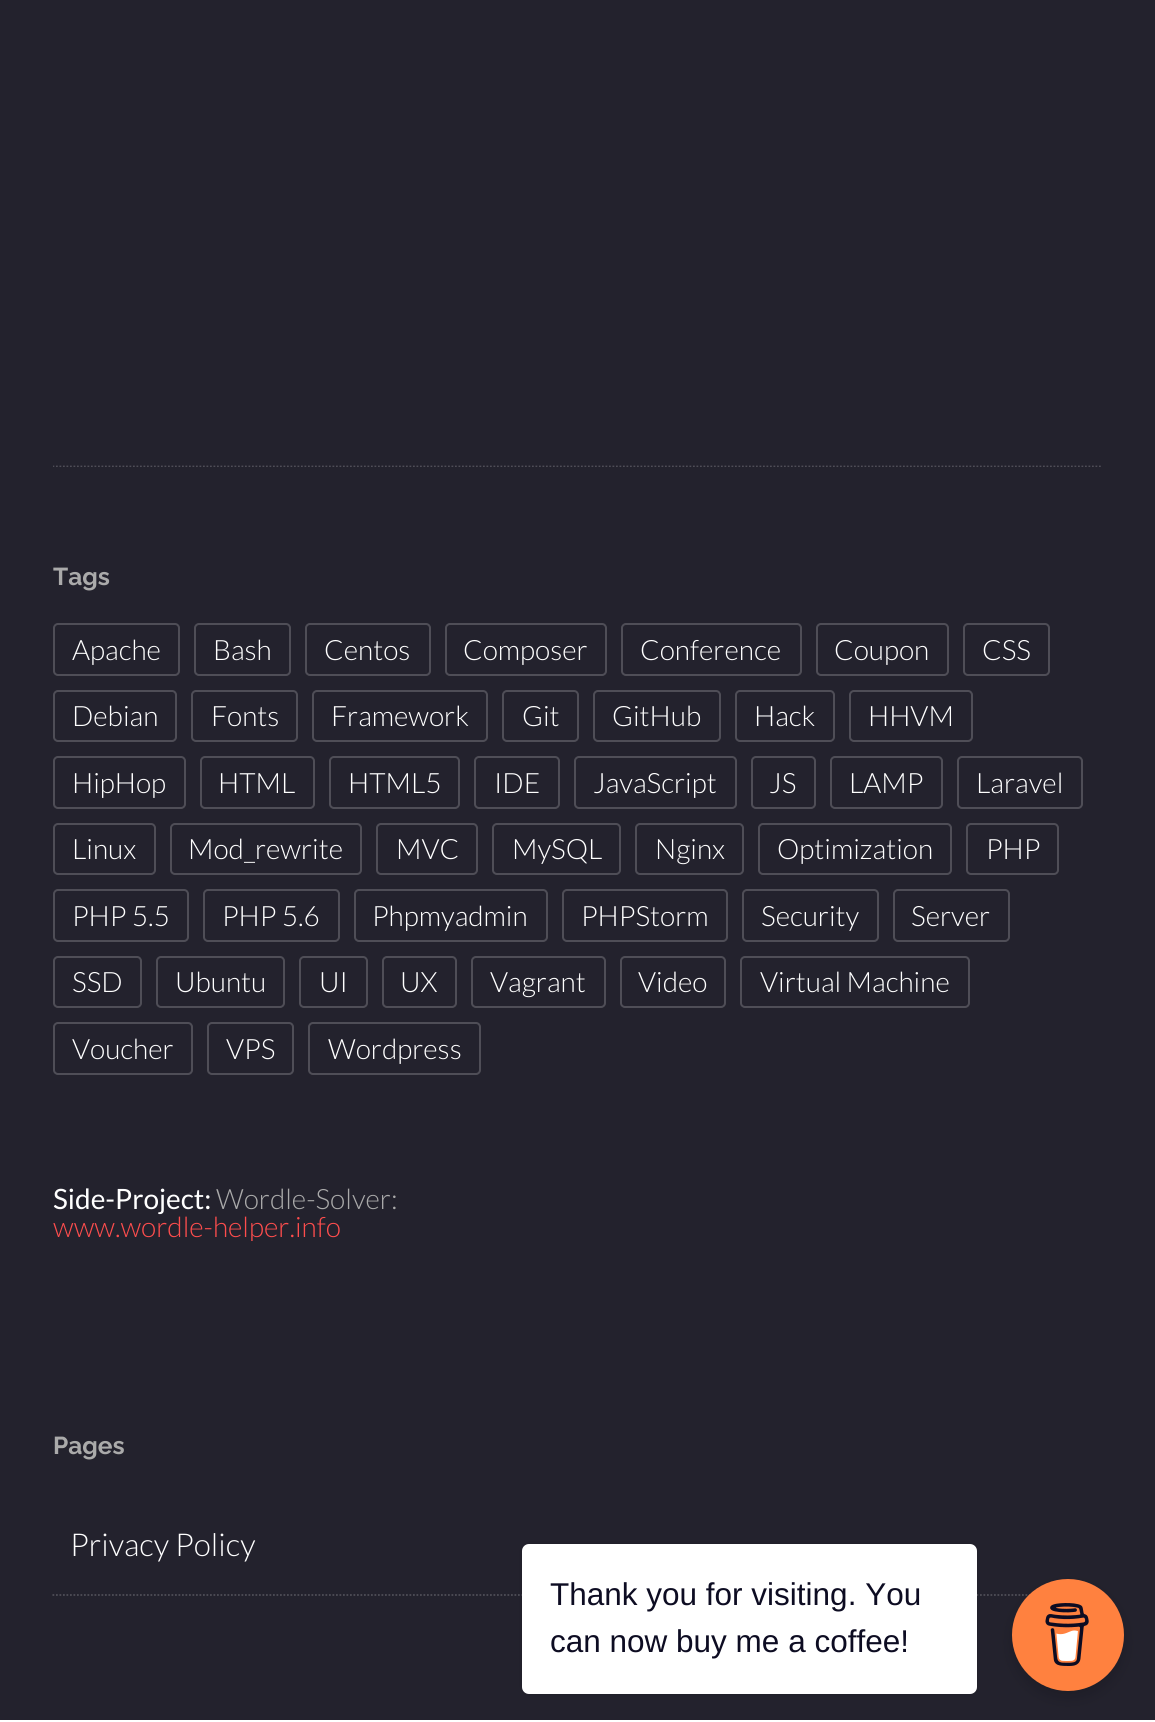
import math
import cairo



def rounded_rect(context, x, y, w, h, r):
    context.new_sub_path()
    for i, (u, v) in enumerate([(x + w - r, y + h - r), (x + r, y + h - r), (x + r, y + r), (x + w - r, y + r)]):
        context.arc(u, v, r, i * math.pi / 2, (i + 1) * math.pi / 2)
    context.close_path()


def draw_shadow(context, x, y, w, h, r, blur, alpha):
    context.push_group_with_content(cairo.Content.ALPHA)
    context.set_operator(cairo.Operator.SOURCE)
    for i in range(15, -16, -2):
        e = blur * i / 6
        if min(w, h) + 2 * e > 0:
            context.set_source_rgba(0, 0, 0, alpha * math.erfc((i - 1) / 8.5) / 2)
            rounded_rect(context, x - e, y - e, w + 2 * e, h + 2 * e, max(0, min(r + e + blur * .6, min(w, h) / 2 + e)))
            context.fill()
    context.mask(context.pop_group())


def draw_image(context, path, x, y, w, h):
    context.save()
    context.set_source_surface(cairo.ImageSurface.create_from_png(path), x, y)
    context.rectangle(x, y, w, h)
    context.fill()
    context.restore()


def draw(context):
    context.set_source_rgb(1, 1, 1)
    context.paint()
    context.set_source_rgb(35 / 255, 34 / 255, 45 / 255)
    context.rectangle(0, 0, 1155, 1720)
    context.fill()
    context.save()
    context.rectangle(53, 0, 1050, 467)
    context.clip()
    context.new_path()
    context.move_to(52.5, 466.5)
    context.line_to(1102.5, 466.5)
    context.set_source_rgb(79 / 255, 78 / 255, 87 / 255)
    context.set_line_width(1.8)
    context.set_dash([1.75, 1.75])
    context.stroke()
    context.restore()
    rounded_rect(context, 54, 624, 125, 51, 4)
    context.set_source_rgb(79 / 255, 78 / 255, 87 / 255)
    context.stroke()
    rounded_rect(context, 195, 624, 95, 51, 4)
    context.stroke()
    rounded_rect(context, 306, 624, 124, 51, 4)
    context.stroke()
    rounded_rect(context, 446, 624, 160, 51, 4)
    context.stroke()
    rounded_rect(context, 622, 624, 179, 51, 4)
    context.stroke()
    rounded_rect(context, 817, 624, 131, 51, 4)
    context.stroke()
    rounded_rect(context, 964, 624, 85, 51, 4)
    context.stroke()
    rounded_rect(context, 54, 691, 122, 50, 4)
    context.stroke()
    rounded_rect(context, 192, 691, 105, 50, 4)
    context.stroke()
    rounded_rect(context, 313, 691, 174, 50, 4)
    context.stroke()
    rounded_rect(context, 503, 691, 75, 50, 4)
    context.stroke()
    rounded_rect(context, 594, 691, 126, 50, 4)
    context.stroke()
    rounded_rect(context, 736, 691, 98, 50, 4)
    context.stroke()
    rounded_rect(context, 850, 691, 122, 50, 4)
    context.stroke()
    rounded_rect(context, 54, 757, 131, 51, 4)
    context.stroke()
    rounded_rect(context, 201, 757, 113, 51, 4)
    context.stroke()
    rounded_rect(context, 330, 757, 129, 51, 4)
    context.stroke()
    rounded_rect(context, 475, 757, 84, 51, 4)
    context.stroke()
    rounded_rect(context, 575, 757, 161, 51, 4)
    context.stroke()
    rounded_rect(context, 752, 757, 63, 51, 4)
    context.stroke()
    rounded_rect(context, 831, 757, 111, 51, 4)
    context.stroke()
    rounded_rect(context, 958, 757, 124, 51, 4)
    context.stroke()
    rounded_rect(context, 54, 824, 101, 50, 4)
    context.stroke()
    rounded_rect(context, 171, 824, 190, 50, 4)
    context.stroke()
    rounded_rect(context, 377, 824, 100, 50, 4)
    context.stroke()
    rounded_rect(context, 493, 824, 127, 50, 4)
    context.stroke()
    rounded_rect(context, 636, 824, 107, 50, 4)
    context.stroke()
    rounded_rect(context, 759, 824, 192, 50, 4)
    context.stroke()
    rounded_rect(context, 967, 824, 91, 50, 4)
    context.stroke()
    rounded_rect(context, 54, 890, 134, 51, 4)
    context.stroke()
    rounded_rect(context, 204, 890, 135, 51, 4)
    context.stroke()
    rounded_rect(context, 355, 890, 192, 51, 4)
    context.stroke()
    rounded_rect(context, 563, 890, 164, 51, 4)
    context.stroke()
    rounded_rect(context, 743, 890, 135, 51, 4)
    context.stroke()
    rounded_rect(context, 894, 890, 115, 51, 4)
    context.stroke()
    rounded_rect(context, 54, 957, 87, 50, 4)
    context.stroke()
    rounded_rect(context, 157, 957, 127, 50, 4)
    context.stroke()
    rounded_rect(context, 300, 957, 67, 50, 4)
    context.stroke()
    rounded_rect(context, 383, 957, 73, 50, 4)
    context.stroke()
    rounded_rect(context, 472, 957, 133, 50, 4)
    context.stroke()
    rounded_rect(context, 621, 957, 104, 50, 4)
    context.stroke()
    rounded_rect(context, 741, 957, 228, 50, 4)
    context.stroke()
    rounded_rect(context, 54, 1023, 138, 51, 4)
    context.stroke()
    rounded_rect(context, 208, 1023, 85, 51, 4)
    context.stroke()
    rounded_rect(context, 309, 1023, 171, 51, 4)
    context.stroke()
    context.new_path()
    context.move_to(52.5, 1595)
    context.line_to(1102.5, 1595)
    context.set_line_width(1.8)
    context.set_dash([1.75, 1.75])
    context.stroke()
    context.set_source_rgb(0, 0, 0)
    draw_shadow(context, 522, 1544, 455, 150, 7, 2, 0.15)
    context.set_source_rgb(1, 1, 1)
    rounded_rect(context, 522, 1544, 455, 150, 7)
    context.fill()
    context.set_source_rgb(0, 0, 0)
    draw_shadow(context, 1012, 1586, 112, 112, 56, 7, 0.15)
    context.set_source_rgb(1, 129 / 255, 63 / 255)
    context.arc(1068, 1635, 56, 0, 2 * math.pi)
    context.fill()
    draw_image(context, "images/1.png", 1045, 1603, 44, 63)
    context.save()
    context.rectangle(53, 564, 1050, 525)
    context.clip()
    context.select_font_face("Raleway Thin")
    context.set_font_size(24.5)
    context.set_source_rgb(170 / 255, 170 / 255, 170 / 255)
    context.move_to(53, 585)
    context.show_text("Tags")
    context.restore()
    context.select_font_face("Lato Light")
    context.set_font_size(28)
    context.set_source_rgb(1, 1, 1)
    context.move_to(72, 660)
    context.show_text("Apache")
    context.move_to(213, 660)
    context.show_text("Bash")
    context.move_to(324, 660)
    context.show_text("Centos")
    context.move_to(463, 660)
    context.show_text("Composer")
    context.move_to(640, 660)
    context.show_text("Conference")
    context.move_to(834, 660)
    context.show_text("Coupon")
    context.move_to(982, 660)
    context.show_text("CSS")
    context.move_to(72, 726)
    context.show_text("Debian")
    context.move_to(211, 726)
    context.show_text("Fonts")
    context.move_to(331, 726)
    context.show_text("Framework")
    context.move_to(522, 726)
    context.show_text("Git")
    context.move_to(612, 726)
    context.show_text("GitHub")
    context.move_to(754, 726)
    context.show_text("Hack")
    context.move_to(868, 726)
    context.show_text("HHVM")
    context.move_to(72, 793)
    context.show_text("HipHop")
    context.move_to(218, 793)
    context.show_text("HTML")
    context.move_to(348, 793)
    context.show_text("HTML5")
    context.move_to(494, 793)
    context.show_text("IDE")
    context.move_to(593, 793)
    context.show_text("JavaScript")
    context.move_to(769, 793)
    context.show_text("JS")
    context.move_to(849, 793)
    context.show_text("LAMP")
    context.move_to(976, 793)
    context.show_text("Laravel")
    context.move_to(72, 859)
    context.show_text("Linux")
    context.move_to(188, 859)
    context.show_text("Mod_rewrite")
    context.move_to(396, 859)
    context.show_text("MVC")
    context.move_to(512, 859)
    context.show_text("MySQL")
    context.move_to(655, 859)
    context.show_text("Nginx")
    context.move_to(777, 859)
    context.show_text("Optimization")
    context.move_to(986, 859)
    context.show_text("PHP")
    context.move_to(72, 926)
    context.show_text("PHP 5.5")
    context.move_to(222, 926)
    context.show_text("PHP 5.6")
    context.move_to(372, 926)
    context.show_text("Phpmyadmin")
    context.move_to(581, 926)
    context.show_text("PHPStorm")
    context.move_to(761, 926)
    context.show_text("Security")
    context.move_to(911, 926)
    context.show_text("Server")
    context.move_to(72, 992)
    context.show_text("SSD")
    context.move_to(175, 992)
    context.show_text("Ubuntu")
    context.move_to(319, 992)
    context.show_text("UI")
    context.move_to(400, 992)
    context.show_text("UX")
    context.move_to(490, 992)
    context.show_text("Vagrant")
    context.move_to(638, 992)
    context.show_text("Video")
    context.move_to(760, 992)
    context.show_text("Virtual Machine")
    context.move_to(72, 1059)
    context.show_text("Voucher")
    context.move_to(226, 1059)
    context.show_text("VPS")
    context.move_to(328, 1059)
    context.show_text("Wordpress")
    context.select_font_face("Lato")
    context.move_to(53, 1209)
    context.show_text("Side-Project:")
    context.select_font_face("Lato Light")
    context.set_source_rgb(170 / 255, 170 / 255, 170 / 255)
    context.move_to(216, 1209)
    context.show_text("Wordle-Solver:")
    context.save()
    context.rectangle(53, 1185, 1050, 56)
    context.clip()
    context.set_source_rgb(1, 77 / 255, 77 / 255)
    context.move_to(53, 1237)
    context.show_text("www.wordle-helper.info")
    context.restore()
    context.select_font_face("Raleway Thin")
    context.set_font_size(24.5)
    context.move_to(53, 1454)
    context.show_text("Pages")
    context.select_font_face("Lato Light")
    context.set_font_size(31.5)
    context.set_source_rgb(1, 1, 1)
    context.move_to(70, 1556)
    context.show_text("Privacy Policy")
    context.select_font_face("Liberation Sans")
    context.set_source_rgb(13 / 255, 12 / 255, 34 / 255)
    context.move_to(550, 1605)
    context.show_text("Thank you for visiting. You")
    context.move_to(550, 1652)
    context.show_text("can now buy me a coffee!")


surface = cairo.ImageSurface(cairo.Format.RGB24, 1155, 1722)
context = cairo.Context(surface)
options = cairo.FontOptions()
options.set_hint_metrics(cairo.HintMetrics.OFF)
options.set_hint_style(cairo.HintStyle.NONE)
context.set_font_options(options)
context.set_miter_limit(4)
draw(context)
surface.write_to_png("out.png")
